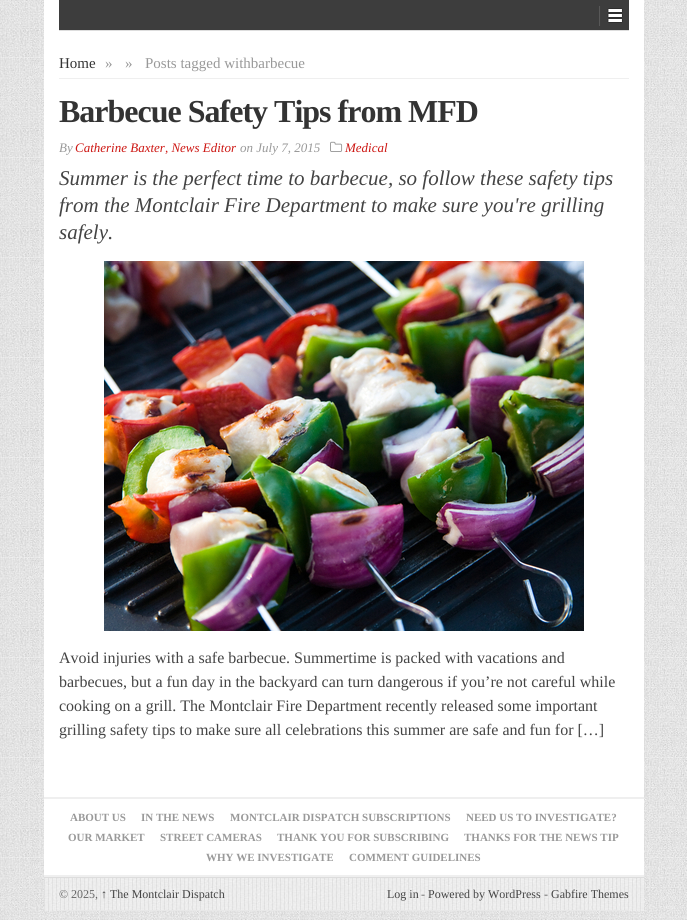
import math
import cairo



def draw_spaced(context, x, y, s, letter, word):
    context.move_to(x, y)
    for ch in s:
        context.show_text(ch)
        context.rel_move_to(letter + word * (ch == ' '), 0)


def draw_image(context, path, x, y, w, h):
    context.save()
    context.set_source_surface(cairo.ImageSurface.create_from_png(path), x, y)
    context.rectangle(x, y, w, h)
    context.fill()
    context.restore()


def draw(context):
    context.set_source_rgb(1, 1, 1)
    context.paint()
    draw_image(context, "images/1.png", 0, 0, 687, 920)
    context.set_source_rgb(1, 1, 1)
    context.rectangle(44, 0, 600, 875)
    context.fill()
    context.set_source_rgb(221 / 255, 221 / 255, 221 / 255)
    context.rectangle(59, 30, 570, 1)
    context.fill()
    context.set_source_rgb(61 / 255, 61 / 255, 61 / 255)
    context.rectangle(59, 0, 570, 30)
    context.fill()
    draw_image(context, "images/2.png", 599, 6, 24, 20)
    context.set_source_rgb(239 / 255, 239 / 255, 239 / 255)
    context.rectangle(59, 78, 570, 1)
    context.fill()
    draw_image(context, "images/3.png", 330, 141, 13, 11)
    draw_image(context, "images/4.png", 104, 261, 480, 370)
    context.rectangle(44, 797, 600, 2)
    context.fill()
    context.rectangle(44, 875, 600, 2)
    context.fill()
    draw_image(context, "images/5.png", 44, 878, 600, 33)
    context.set_source_rgb(221 / 255, 221 / 255, 221 / 255)
    context.rectangle(44, 877, 600, 1)
    context.fill()
    context.set_source_rgb(232 / 255, 232 / 255, 232 / 255)
    context.rectangle(59, 910, 570, 1)
    context.fill()
    context.select_font_face("Liberation Serif")
    context.set_font_size(15)
    context.set_source_rgb(51 / 255, 51 / 255, 51 / 255)
    context.move_to(59, 68)
    context.show_text("Home")
    context.set_source_rgb(153 / 255, 153 / 255, 153 / 255)
    context.move_to(105, 68)
    context.show_text("»")
    context.move_to(125, 68)
    context.show_text("»")
    context.move_to(145, 68)
    context.show_text("Posts tagged withbarbecue")
    context.select_font_face("Liberation Serif", cairo.FontSlant.NORMAL, cairo.FontWeight.BOLD)
    context.set_font_size(32)
    context.set_source_rgb(51 / 255, 51 / 255, 51 / 255)
    draw_spaced(context, 59, 122, "Barbecue Safety Tips from MFD", -1, 0)
    context.select_font_face("Liberation Serif", cairo.FontSlant.ITALIC)
    context.set_font_size(13)
    context.set_source_rgb(153 / 255, 153 / 255, 153 / 255)
    context.move_to(59, 152)
    context.show_text("By")
    context.set_source_rgb(205 / 255, 23 / 255, 19 / 255)
    context.move_to(75, 152)
    context.show_text("Catherine Baxter, News Editor")
    context.set_source_rgb(153 / 255, 153 / 255, 153 / 255)
    context.move_to(240, 152)
    context.show_text("on July 7, 2015")
    context.set_source_rgb(205 / 255, 23 / 255, 19 / 255)
    context.move_to(345, 152)
    context.show_text("Medical")
    context.set_font_size(21)
    context.set_source_rgb(68 / 255, 68 / 255, 68 / 255)
    context.move_to(59, 185)
    context.show_text("Summer is the perfect time to barbecue, so follow these safety tips")
    context.move_to(59, 212)
    context.show_text("from the Montclair Fire Department to make sure you're grilling")
    context.move_to(59, 239)
    context.show_text("safely.")
    context.select_font_face("Liberation Serif")
    context.set_font_size(16)
    context.move_to(59, 663)
    context.show_text("Avoid injuries with a safe barbecue. Summertime is packed with vacations and")
    context.move_to(59, 687)
    context.show_text("barbecues, but a fun day in the backyard can turn dangerous if you’re not careful while")
    context.move_to(59, 711)
    context.show_text("cooking on a grill. The Montclair Fire Department recently released some important")
    context.move_to(59, 735)
    context.show_text("grilling safety tips to make sure all celebrations this summer are safe and fun for […]")
    context.select_font_face("Liberation Serif", cairo.FontSlant.NORMAL, cairo.FontWeight.BOLD)
    context.set_font_size(11)
    context.set_source_rgb(153 / 255, 153 / 255, 153 / 255)
    context.move_to(70, 821)
    context.show_text("ABOUT US")
    context.move_to(141, 821)
    context.show_text("IN THE NEWS")
    context.move_to(230, 821)
    context.show_text("MONTCLAIR DISPATCH SUBSCRIPTIONS")
    context.move_to(466, 821)
    context.show_text("NEED US TO INVESTIGATE?")
    context.move_to(68, 841)
    context.show_text("OUR MARKET")
    context.move_to(160, 841)
    context.show_text("STREET CAMERAS")
    context.move_to(277, 841)
    context.show_text("THANK YOU FOR SUBSCRIBING")
    context.move_to(464, 841)
    context.show_text("THANKS FOR THE NEWS TIP")
    context.move_to(206, 861)
    context.show_text("WHY WE INVESTIGATE")
    context.move_to(349, 861)
    context.show_text("COMMENT GUIDELINES")
    context.select_font_face("Liberation Serif")
    context.set_font_size(12)
    context.set_source_rgb(102 / 255, 102 / 255, 102 / 255)
    context.move_to(59, 898)
    context.show_text("© 2025,")
    context.select_font_face("Liberation Serif", cairo.FontSlant.NORMAL, cairo.FontWeight.BOLD)
    context.set_source_rgb(68 / 255, 68 / 255, 68 / 255)
    context.move_to(101, 898)
    context.show_text("↑")
    context.select_font_face("Liberation Serif")
    context.move_to(110, 898)
    context.show_text("The Montclair Dispatch")
    context.move_to(387, 898)
    context.show_text("Log in")
    context.set_source_rgb(102 / 255, 102 / 255, 102 / 255)
    context.move_to(421, 898)
    context.show_text("-")
    context.set_source_rgb(68 / 255, 68 / 255, 68 / 255)
    context.move_to(428, 898)
    context.show_text("Powered by WordPress")
    context.set_source_rgb(102 / 255, 102 / 255, 102 / 255)
    context.move_to(544, 898)
    context.show_text("-")
    context.set_source_rgb(68 / 255, 68 / 255, 68 / 255)
    context.move_to(551, 898)
    context.show_text("Gabfire Themes")


surface = cairo.ImageSurface(cairo.Format.RGB24, 687, 920)
context = cairo.Context(surface)
options = cairo.FontOptions()
options.set_hint_metrics(cairo.HintMetrics.OFF)
options.set_hint_style(cairo.HintStyle.NONE)
context.set_font_options(options)
context.set_miter_limit(4)
draw(context)
surface.write_to_png("out.png")
